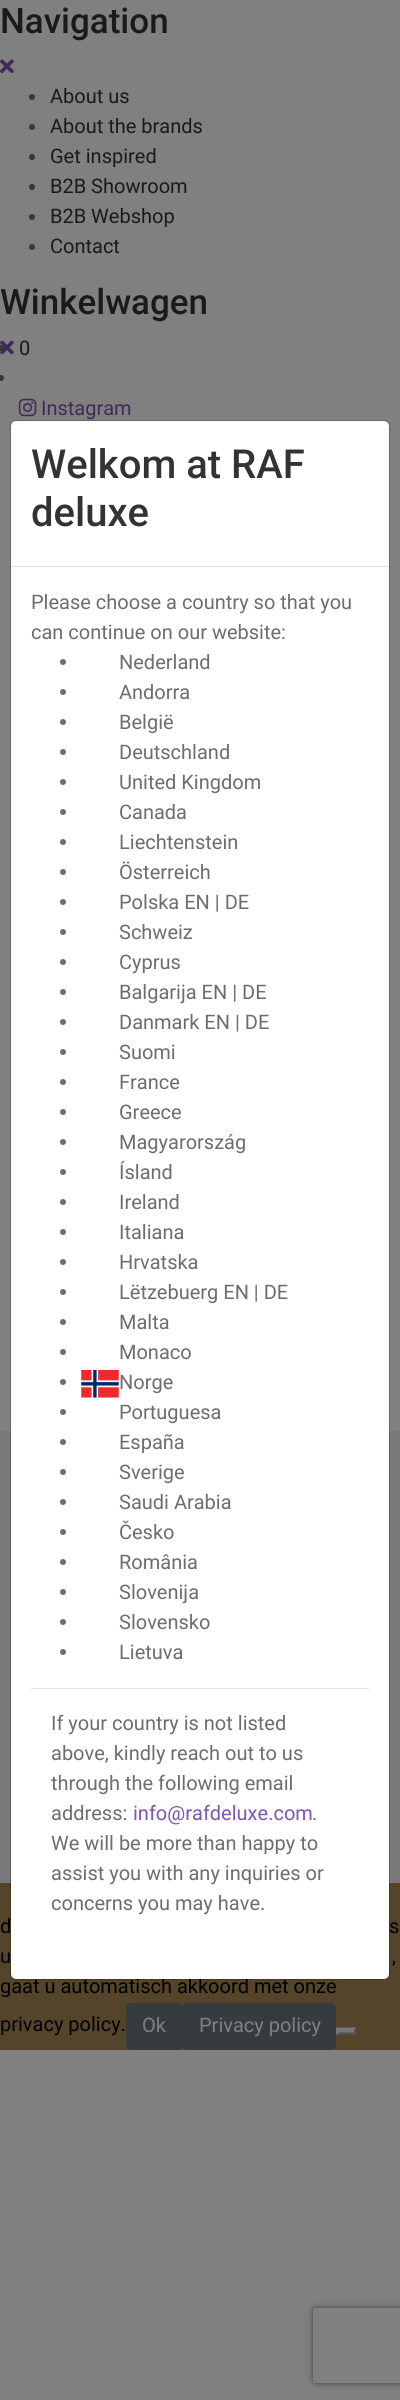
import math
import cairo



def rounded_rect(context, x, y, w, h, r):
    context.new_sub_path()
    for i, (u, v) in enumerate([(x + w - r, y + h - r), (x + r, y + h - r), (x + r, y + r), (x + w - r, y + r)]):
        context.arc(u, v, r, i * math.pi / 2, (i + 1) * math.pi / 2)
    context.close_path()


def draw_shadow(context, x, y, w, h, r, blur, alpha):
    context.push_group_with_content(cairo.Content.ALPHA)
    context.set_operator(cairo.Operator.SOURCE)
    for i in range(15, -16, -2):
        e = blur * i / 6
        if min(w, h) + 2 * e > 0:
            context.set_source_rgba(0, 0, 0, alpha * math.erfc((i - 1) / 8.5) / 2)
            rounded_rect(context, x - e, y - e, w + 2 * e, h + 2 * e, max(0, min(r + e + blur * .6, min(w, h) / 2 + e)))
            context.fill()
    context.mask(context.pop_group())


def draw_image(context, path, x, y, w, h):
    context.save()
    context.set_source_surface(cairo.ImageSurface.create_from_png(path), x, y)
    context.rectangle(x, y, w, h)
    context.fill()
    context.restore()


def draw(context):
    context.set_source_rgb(128 / 255, 128 / 255, 128 / 255)
    context.paint()
    draw_image(context, "images/1.png", 0, 59, 14, 15)
    context.set_source_rgb(55 / 255, 55 / 255, 55 / 255)
    context.arc(32, 97, 3, 0, 2 * math.pi)
    context.fill()
    context.arc(32, 127, 3, 0, 2 * math.pi)
    context.fill()
    context.arc(32, 157, 3, 0, 2 * math.pi)
    context.fill()
    context.arc(32, 187, 3, 0, 2 * math.pi)
    context.fill()
    context.arc(32, 217, 3, 0, 2 * math.pi)
    context.fill()
    context.arc(32, 247, 3, 0, 2 * math.pi)
    context.fill()
    draw_image(context, "images/2.png", 0, 340, 14, 15)
    context.arc(1, 348, 3, 0, 2 * math.pi)
    context.fill()
    context.arc(1, 378, 3, 0, 2 * math.pi)
    context.fill()
    draw_image(context, "images/3.png", 18, 398, 19, 19)
    context.set_source_rgb(120 / 255, 120 / 255, 120 / 255)
    context.rectangle(0, 1431, 400, 452)
    context.fill()
    context.set_source_rgb(84 / 255, 68 / 255, 41 / 255)
    context.rectangle(0, 1883, 400, 167)
    context.fill()
    context.set_source_rgb(54 / 255, 59 / 255, 63 / 255)
    rounded_rect(context, 126.5, 2003.5, 56, 46, 4.5)
    context.fill_preserve()
    context.set_line_width(1)
    context.stroke()
    rounded_rect(context, 183.5, 2003.5, 152, 46, 4.5)
    context.fill_preserve()
    context.stroke()
    context.set_source_rgb(119 / 255, 119 / 255, 119 / 255)
    context.rectangle(336, 2028, 20, 7)
    context.fill()
    context.new_path()
    context.move_to(336, 2027.5)
    context.line_to(356, 2027.5)
    context.line_to(354, 2030)
    context.line_to(339, 2030)
    context.close_path()
    context.fill()
    context.set_source_rgb(80 / 255, 80 / 255, 80 / 255)
    context.new_path()
    context.move_to(356, 2027.5)
    context.line_to(356, 2035)
    context.line_to(354, 2032.5)
    context.line_to(354, 2030)
    context.close_path()
    context.fill()
    context.new_path()
    context.move_to(356, 2035)
    context.line_to(336, 2035)
    context.line_to(339, 2032.5)
    context.line_to(354, 2032.5)
    context.close_path()
    context.fill()
    context.set_source_rgb(119 / 255, 119 / 255, 119 / 255)
    context.new_path()
    context.move_to(336, 2035)
    context.line_to(336, 2027.5)
    context.line_to(339, 2030)
    context.line_to(339, 2032.5)
    context.close_path()
    context.fill()
    context.save()
    context.set_fill_rule(cairo.FillRule.EVEN_ODD)
    context.new_path()
    context.move_to(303, 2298)
    context.line_to(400, 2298)
    context.line_to(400, 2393)
    context.line_to(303, 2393)
    context.close_path()
    context.move_to(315.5, 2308)
    context.line_to(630.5, 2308)
    context.curve_to(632, 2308, 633, 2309, 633, 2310.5)
    context.line_to(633, 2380.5)
    context.curve_to(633, 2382, 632, 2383, 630.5, 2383)
    context.line_to(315.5, 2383)
    context.curve_to(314, 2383, 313, 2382, 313, 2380.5)
    context.line_to(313, 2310.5)
    context.curve_to(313, 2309, 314, 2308, 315.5, 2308)
    context.close_path()
    context.clip()
    context.set_source_rgb(64 / 255, 64 / 255, 64 / 255)
    draw_shadow(context, 313, 2308, 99, 75, 2.5, 3, 1)
    context.restore()
    context.select_font_face("Roboto Medium")
    context.set_font_size(35)
    context.set_source_rgb(26 / 255, 26 / 255, 26 / 255)
    context.move_to(0, 33)
    context.show_text("Navigation")
    context.select_font_face("Roboto")
    context.set_font_size(20)
    context.move_to(50, 103)
    context.show_text("About us")
    context.move_to(50, 133)
    context.show_text("About the brands")
    context.move_to(50, 163)
    context.show_text("Get inspired")
    context.move_to(50, 193)
    context.show_text("B2B Showroom")
    context.move_to(50, 223)
    context.show_text("B2B Webshop")
    context.move_to(50, 253)
    context.show_text("Contact")
    context.select_font_face("Roboto Medium")
    context.set_font_size(35)
    context.move_to(0, 314)
    context.show_text("Winkelwagen")
    context.select_font_face("Roboto")
    context.set_font_size(20)
    context.move_to(19, 355)
    context.show_text("0")
    context.set_source_rgb(64 / 255, 42 / 255, 90 / 255)
    context.move_to(41, 415)
    context.show_text("Instagram")
    context.set_source_rgb(0, 0, 0)
    context.move_to(0, 1933)
    context.show_text("d")
    context.move_to(389, 1933)
    context.show_text("s")
    context.move_to(0, 1963)
    context.show_text("u")
    context.move_to(392, 1963)
    context.show_text(",")
    context.move_to(0, 1993)
    context.show_text("gaat u automatisch akkoord met onze")
    context.set_source_rgb(1, 1, 1)
    rounded_rect(context, 11, 421, 378, 1558, 5)
    context.fill()
    rounded_rect(context, 10.5, 420.5, 379, 1559, 5.5)
    context.set_source_rgba(0, 0, 0, 0.2)
    context.stroke()
    context.set_source_rgb(109 / 255, 109 / 255, 109 / 255)
    context.move_to(51, 1910)
    context.show_text("concerns you may have.")
    context.move_to(51, 1880)
    context.show_text("assist you with any inquiries or")
    context.move_to(51, 1850)
    context.show_text("We will be more than happy to")
    context.move_to(312, 1820)
    context.show_text(".")
    context.set_source_rgb(127 / 255, 84 / 255, 179 / 255)
    context.move_to(133, 1820)
    context.show_text("info@rafdeluxe.com")
    context.set_source_rgb(109 / 255, 109 / 255, 109 / 255)
    context.move_to(51, 1820)
    context.show_text("address:")
    context.move_to(51, 1790)
    context.show_text("through the following email")
    context.move_to(51, 1760)
    context.show_text("above, kindly reach out to us")
    context.move_to(51, 1730)
    context.show_text("If your country is not listed")
    context.move_to(119, 1659)
    context.show_text("Lietuva")
    context.new_path()
    context.arc(63, 1652, 3, 0, 2 * math.pi)
    context.fill()
    context.move_to(119, 1629)
    context.show_text("Slovensko")
    context.new_path()
    context.arc(63, 1622, 3, 0, 2 * math.pi)
    context.fill()
    context.move_to(119, 1599)
    context.show_text("Slovenija")
    context.new_path()
    context.arc(63, 1592, 3, 0, 2 * math.pi)
    context.fill()
    context.move_to(119, 1569)
    context.show_text("România")
    context.new_path()
    context.arc(63, 1562, 3, 0, 2 * math.pi)
    context.fill()
    context.move_to(119, 1539)
    context.show_text("Česko")
    context.new_path()
    context.arc(63, 1532, 3, 0, 2 * math.pi)
    context.fill()
    context.move_to(119, 1509)
    context.show_text("Saudi Arabia")
    context.new_path()
    context.arc(63, 1502, 3, 0, 2 * math.pi)
    context.fill()
    context.move_to(119, 1479)
    context.show_text("Sverige")
    context.new_path()
    context.arc(63, 1472, 3, 0, 2 * math.pi)
    context.fill()
    context.move_to(119, 1449)
    context.show_text("España")
    context.new_path()
    context.arc(63, 1442, 3, 0, 2 * math.pi)
    context.fill()
    context.move_to(119, 1419)
    context.show_text("Portuguesa")
    context.new_path()
    context.arc(63, 1412, 3, 0, 2 * math.pi)
    context.fill()
    context.move_to(119, 1389)
    context.show_text("Norge")
    draw_image(context, "images/4.png", 81, 1370, 38, 28)
    context.arc(63, 1382, 3, 0, 2 * math.pi)
    context.fill()
    context.move_to(119, 1359)
    context.show_text("Monaco")
    context.new_path()
    context.arc(63, 1352, 3, 0, 2 * math.pi)
    context.fill()
    context.move_to(119, 1329)
    context.show_text("Malta")
    context.new_path()
    context.arc(63, 1322, 3, 0, 2 * math.pi)
    context.fill()
    context.move_to(119, 1299)
    context.show_text("Lëtzebuerg EN | DE")
    context.new_path()
    context.arc(63, 1292, 3, 0, 2 * math.pi)
    context.fill()
    context.move_to(119, 1269)
    context.show_text("Hrvatska")
    context.new_path()
    context.arc(63, 1262, 3, 0, 2 * math.pi)
    context.fill()
    context.move_to(119, 1239)
    context.show_text("Italiana")
    context.new_path()
    context.arc(63, 1232, 3, 0, 2 * math.pi)
    context.fill()
    context.move_to(119, 1209)
    context.show_text("Ireland")
    context.new_path()
    context.arc(63, 1202, 3, 0, 2 * math.pi)
    context.fill()
    context.move_to(119, 1179)
    context.show_text("Ísland")
    context.new_path()
    context.arc(63, 1172, 3, 0, 2 * math.pi)
    context.fill()
    context.move_to(119, 1149)
    context.show_text("Magyarország")
    context.new_path()
    context.arc(63, 1142, 3, 0, 2 * math.pi)
    context.fill()
    context.move_to(119, 1119)
    context.show_text("Greece")
    context.new_path()
    context.arc(63, 1112, 3, 0, 2 * math.pi)
    context.fill()
    context.move_to(119, 1089)
    context.show_text("France")
    context.new_path()
    context.arc(63, 1082, 3, 0, 2 * math.pi)
    context.fill()
    context.move_to(119, 1059)
    context.show_text("Suomi")
    context.new_path()
    context.arc(63, 1052, 3, 0, 2 * math.pi)
    context.fill()
    context.move_to(119, 1029)
    context.show_text("Danmark EN | DE")
    context.new_path()
    context.arc(63, 1022, 3, 0, 2 * math.pi)
    context.fill()
    context.move_to(119, 999)
    context.show_text("Balgarija EN | DE")
    context.new_path()
    context.arc(63, 992, 3, 0, 2 * math.pi)
    context.fill()
    context.move_to(119, 969)
    context.show_text("Cyprus")
    context.new_path()
    context.arc(63, 962, 3, 0, 2 * math.pi)
    context.fill()
    context.move_to(119, 939)
    context.show_text("Schweiz")
    context.new_path()
    context.arc(63, 932, 3, 0, 2 * math.pi)
    context.fill()
    context.move_to(119, 909)
    context.show_text("Polska EN | DE")
    context.new_path()
    context.arc(63, 902, 3, 0, 2 * math.pi)
    context.fill()
    context.move_to(119, 879)
    context.show_text("Österreich")
    context.new_path()
    context.arc(63, 872, 3, 0, 2 * math.pi)
    context.fill()
    context.move_to(119, 849)
    context.show_text("Liechtenstein")
    context.new_path()
    context.arc(63, 842, 3, 0, 2 * math.pi)
    context.fill()
    context.move_to(119, 819)
    context.show_text("Canada")
    context.new_path()
    context.arc(63, 812, 3, 0, 2 * math.pi)
    context.fill()
    context.move_to(119, 789)
    context.show_text("United Kingdom")
    context.new_path()
    context.arc(63, 782, 3, 0, 2 * math.pi)
    context.fill()
    context.move_to(119, 759)
    context.show_text("Deutschland")
    context.new_path()
    context.arc(63, 752, 3, 0, 2 * math.pi)
    context.fill()
    context.move_to(119, 729)
    context.show_text("België")
    context.new_path()
    context.arc(63, 722, 3, 0, 2 * math.pi)
    context.fill()
    context.move_to(119, 699)
    context.show_text("Andorra")
    context.new_path()
    context.arc(63, 692, 3, 0, 2 * math.pi)
    context.fill()
    context.move_to(119, 669)
    context.show_text("Nederland")
    context.new_path()
    context.arc(63, 662, 3, 0, 2 * math.pi)
    context.fill()
    context.move_to(31, 639)
    context.show_text("can continue on our website:")
    context.move_to(31, 609)
    context.show_text("Please choose a country so that you")
    context.set_source_rgb(222 / 255, 226 / 255, 230 / 255)
    context.rectangle(31, 1688, 338, 1)
    context.fill()
    context.select_font_face("Roboto Medium")
    context.set_font_size(40)
    context.set_source_rgb(51 / 255, 51 / 255, 51 / 255)
    context.move_to(31, 526)
    context.show_text("deluxe")
    context.move_to(31, 478)
    context.show_text("Welkom at RAF")
    context.set_source_rgb(222 / 255, 226 / 255, 230 / 255)
    context.rectangle(11, 566, 378, 1)
    context.fill()
    context.select_font_face("Roboto")
    context.set_font_size(20)
    context.set_source_rgb(0, 0, 0)
    context.move_to(0, 2031)
    context.show_text("privacy policy.")
    context.set_source_rgb(128 / 255, 128 / 255, 128 / 255)
    context.move_to(142, 2032)
    context.show_text("Ok")
    context.move_to(199, 2032)
    context.show_text("Privacy policy")


surface = cairo.ImageSurface(cairo.Format.RGB24, 400, 2400)
context = cairo.Context(surface)
options = cairo.FontOptions()
options.set_hint_metrics(cairo.HintMetrics.OFF)
options.set_hint_style(cairo.HintStyle.NONE)
context.set_font_options(options)
context.set_miter_limit(4)
draw(context)
surface.write_to_png("out.png")
